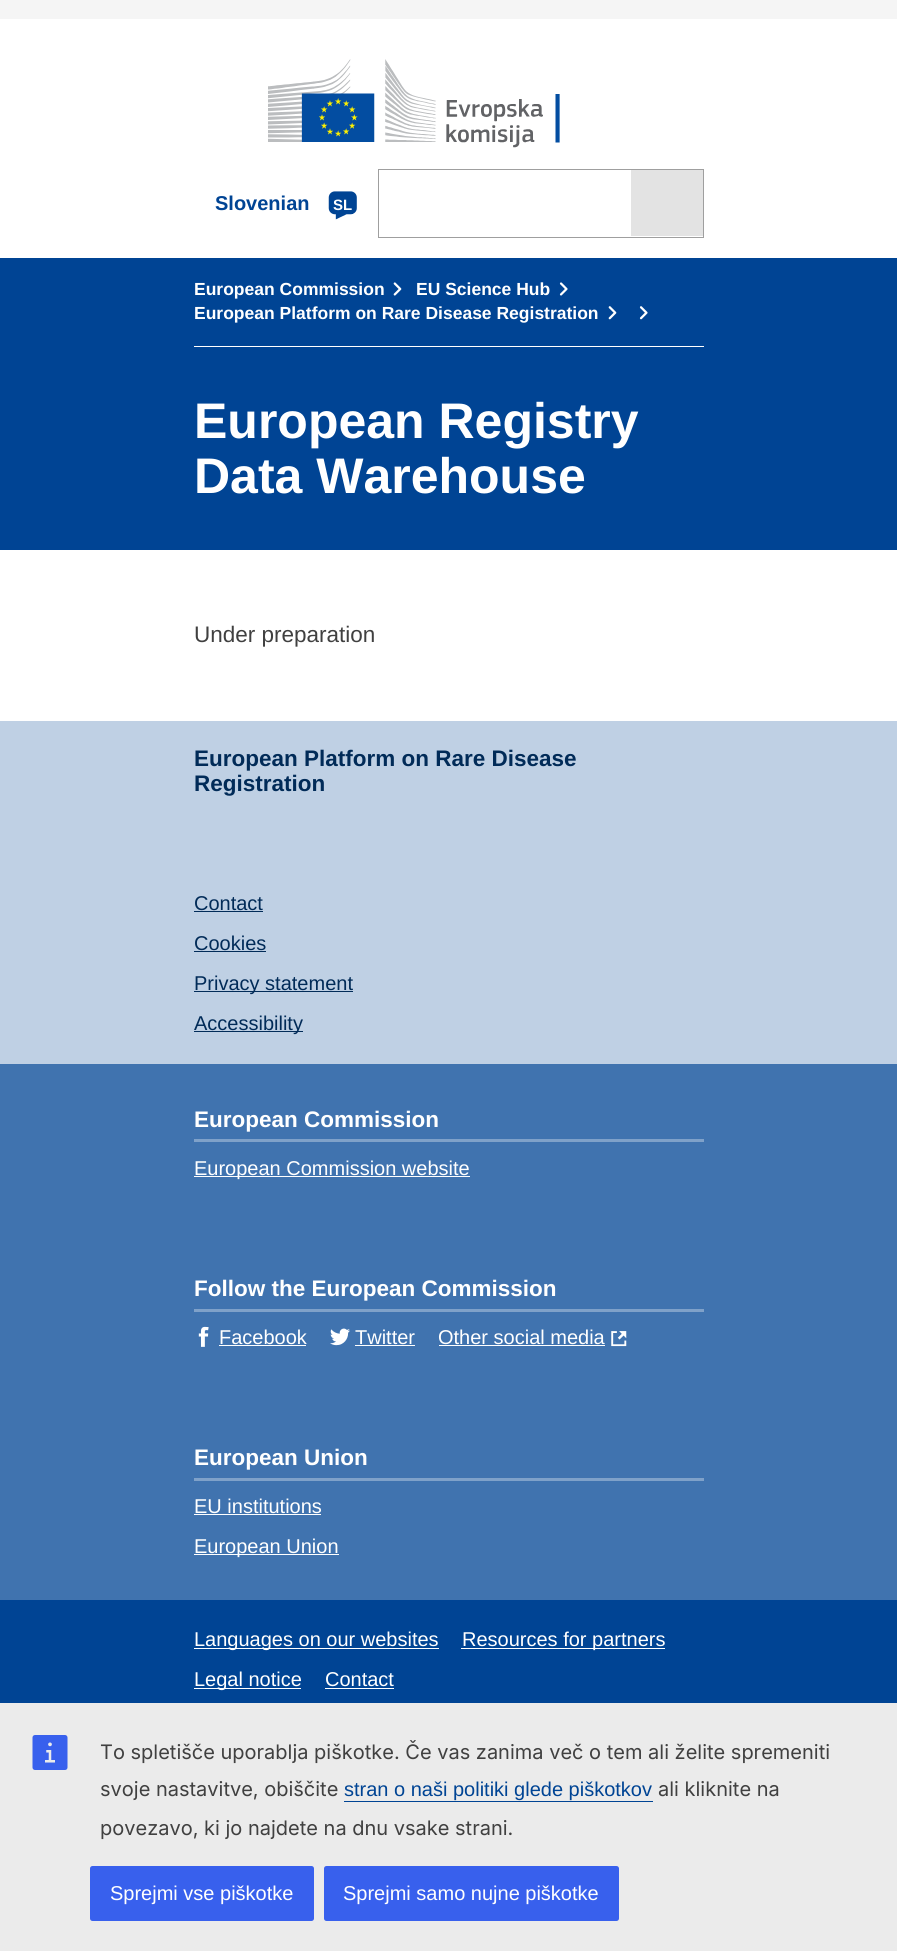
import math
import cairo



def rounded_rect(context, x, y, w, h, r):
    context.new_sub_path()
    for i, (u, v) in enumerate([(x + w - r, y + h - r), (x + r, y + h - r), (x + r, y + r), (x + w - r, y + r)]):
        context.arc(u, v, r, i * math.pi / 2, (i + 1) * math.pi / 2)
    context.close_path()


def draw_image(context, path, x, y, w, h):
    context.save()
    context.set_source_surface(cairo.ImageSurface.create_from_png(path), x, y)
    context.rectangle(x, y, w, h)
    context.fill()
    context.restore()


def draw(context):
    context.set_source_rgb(1, 1, 1)
    context.paint()
    context.set_source_rgb(245 / 255, 245 / 255, 245 / 255)
    context.rectangle(0, 0, 897, 19)
    context.fill()
    draw_image(context, "images/1.png", 268, 59, 292, 89)
    draw_image(context, "images/2.png", 328, 191, 29, 29)
    context.set_source_rgb(0, 68 / 255, 148 / 255)
    context.rectangle(352, 213, 1, 1)
    context.fill()
    context.rectangle(378.5, 169.5, 325, 68)
    context.set_source_rgb(159 / 255, 159 / 255, 159 / 255)
    context.set_line_width(1)
    context.stroke()
    context.set_source_rgb(227 / 255, 227 / 255, 227 / 255)
    context.rectangle(631, 170, 72, 66)
    context.fill()
    context.set_source_rgb(0, 68 / 255, 148 / 255)
    context.rectangle(0, 258, 897, 292)
    context.fill()
    context.set_source_rgb(1, 1, 1)
    context.rectangle(194, 346, 510, 1)
    context.fill()
    draw_image(context, "images/3.png", 393, 282, 9, 14)
    draw_image(context, "images/4.png", 559, 282, 9, 14)
    draw_image(context, "images/5.png", 608, 306, 9, 14)
    draw_image(context, "images/6.png", 639, 306, 9, 14)
    context.set_source_rgb(191 / 255, 208 / 255, 228 / 255)
    context.rectangle(0, 721, 897, 343)
    context.fill()
    context.set_source_rgb(1 / 255, 43 / 255, 88 / 255)
    context.rectangle(194, 911, 69, 1)
    context.fill()
    context.rectangle(194, 951, 72, 1)
    context.fill()
    context.rectangle(194, 991, 159, 1)
    context.fill()
    context.rectangle(194, 1031, 109, 1)
    context.fill()
    context.set_source_rgb(64 / 255, 115 / 255, 175 / 255)
    context.rectangle(0, 1064, 897, 536)
    context.fill()
    context.set_source_rgb(127 / 255, 161 / 255, 201 / 255)
    context.rectangle(194, 1139, 510, 3)
    context.fill()
    context.set_source_rgb(1, 1, 1)
    context.rectangle(194, 1176, 276, 1)
    context.fill()
    context.set_source_rgb(127 / 255, 161 / 255, 201 / 255)
    context.rectangle(194, 1309, 510, 3)
    context.fill()
    draw_image(context, "images/7.png", 198, 1326, 11, 21)
    context.set_source_rgb(1, 1, 1)
    context.rectangle(219, 1345, 87, 1)
    context.fill()
    draw_image(context, "images/8.png", 330, 1328, 20, 18)
    context.rectangle(355, 1345, 60, 1)
    context.fill()
    context.rectangle(439, 1345, 166, 1)
    context.fill()
    draw_image(context, "images/9.png", 611, 1331, 16, 16)
    context.set_source_rgb(127 / 255, 161 / 255, 201 / 255)
    context.rectangle(194, 1478, 510, 3)
    context.fill()
    context.set_source_rgb(1, 1, 1)
    context.rectangle(194, 1514, 127, 1)
    context.fill()
    context.rectangle(194, 1554, 145, 1)
    context.fill()
    context.set_source_rgb(0, 68 / 255, 148 / 255)
    context.rectangle(0, 1600, 897, 103)
    context.fill()
    context.set_source_rgb(1, 1, 1)
    context.rectangle(194, 1648, 245, 1)
    context.fill()
    context.rectangle(461, 1648, 204, 1)
    context.fill()
    context.rectangle(194, 1688, 107, 1)
    context.fill()
    context.rectangle(325, 1688, 69, 1)
    context.fill()
    context.set_source_rgb(235 / 255, 235 / 255, 235 / 255)
    context.rectangle(0, 1703, 897, 248)
    context.fill()
    draw_image(context, "images/10.png", 32, 1735, 36, 35)
    context.set_source_rgb(0, 68 / 255, 148 / 255)
    context.rectangle(344, 1801, 309, 1)
    context.fill()
    context.set_source_rgb(56 / 255, 96 / 255, 237 / 255)
    rounded_rect(context, 90, 1866, 224, 55, 2.5)
    context.fill()
    rounded_rect(context, 324, 1866, 295, 55, 2.5)
    context.fill()
    context.select_font_face("Liberation Sans", cairo.FontSlant.NORMAL, cairo.FontWeight.BOLD)
    context.set_font_size(20)
    context.set_source_rgb(0, 68 / 255, 148 / 255)
    context.move_to(215, 210)
    context.show_text("Slovenian")
    context.set_font_size(15)
    context.set_source_rgb(1, 1, 1)
    context.move_to(333, 210)
    context.show_text("SL")
    context.set_font_size(17.5)
    context.move_to(194, 295)
    context.show_text("European Commission")
    context.move_to(416, 295)
    context.show_text("EU Science Hub")
    context.move_to(194, 319)
    context.show_text("European Platform on Rare Disease Registration")
    context.set_font_size(50)
    context.move_to(194, 438)
    context.show_text("European Registry")
    context.move_to(194, 493)
    context.show_text("Data Warehouse")
    context.select_font_face("Liberation Sans")
    context.set_font_size(22.5)
    context.set_source_rgb(64 / 255, 64 / 255, 64 / 255)
    context.move_to(194, 642)
    context.show_text("Under preparation")
    context.select_font_face("Liberation Sans", cairo.FontSlant.NORMAL, cairo.FontWeight.BOLD)
    context.set_source_rgb(1 / 255, 43 / 255, 88 / 255)
    context.move_to(194, 766)
    context.show_text("European Platform on Rare Disease")
    context.move_to(194, 791)
    context.show_text("Registration")
    context.select_font_face("Liberation Sans")
    context.set_font_size(20)
    context.move_to(194, 910)
    context.show_text("Contact")
    context.move_to(194, 950)
    context.show_text("Cookies")
    context.move_to(194, 990)
    context.show_text("Privacy statement")
    context.move_to(194, 1030)
    context.show_text("Accessibility")
    context.select_font_face("Liberation Sans", cairo.FontSlant.NORMAL, cairo.FontWeight.BOLD)
    context.set_font_size(22.5)
    context.set_source_rgb(1, 1, 1)
    context.move_to(194, 1127)
    context.show_text("European Commission")
    context.select_font_face("Liberation Sans")
    context.set_font_size(20)
    context.move_to(194, 1175)
    context.show_text("European Commission website")
    context.select_font_face("Liberation Sans", cairo.FontSlant.NORMAL, cairo.FontWeight.BOLD)
    context.set_font_size(22.5)
    context.move_to(194, 1296)
    context.show_text("Follow the European Commission")
    context.select_font_face("Liberation Sans")
    context.set_font_size(20)
    context.move_to(219, 1344)
    context.show_text("Facebook")
    context.move_to(355, 1344)
    context.show_text("Twitter")
    context.move_to(438, 1344)
    context.show_text("Other social media")
    context.select_font_face("Liberation Sans", cairo.FontSlant.NORMAL, cairo.FontWeight.BOLD)
    context.set_font_size(22.5)
    context.move_to(194, 1465)
    context.show_text("European Union")
    context.select_font_face("Liberation Sans")
    context.set_font_size(20)
    context.move_to(194, 1513)
    context.show_text("EU institutions")
    context.move_to(194, 1553)
    context.show_text("European Union")
    context.move_to(194, 1646)
    context.show_text("Languages on our websites")
    context.move_to(462, 1646)
    context.show_text("Resources for partners")
    context.move_to(194, 1686)
    context.show_text("Legal notice")
    context.move_to(325, 1686)
    context.show_text("Contact")
    context.select_font_face("Inter")
    context.set_source_rgb(64 / 255, 64 / 255, 64 / 255)
    context.move_to(100, 1759)
    context.show_text("To spletišče uporablja piškotke. Če vas zanima več o tem ali želite spremeniti")
    context.move_to(100, 1796)
    context.show_text("svoje nastavitve, obiščite")
    context.select_font_face("Liberation Sans")
    context.set_source_rgb(0, 68 / 255, 148 / 255)
    context.move_to(344, 1796)
    context.show_text("stran o naši politiki glede piškotkov")
    context.select_font_face("Inter")
    context.set_source_rgb(64 / 255, 64 / 255, 64 / 255)
    context.move_to(658, 1796)
    context.show_text("ali kliknite na")
    context.move_to(100, 1835)
    context.show_text("povezavo, ki jo najdete na dnu vsake strani.")
    context.select_font_face("Liberation Sans")
    context.set_source_rgb(1, 1, 1)
    context.move_to(110, 1900)
    context.show_text("Sprejmi vse piškotke")
    context.move_to(343, 1900)
    context.show_text("Sprejmi samo nujne piškotke")


surface = cairo.ImageSurface(cairo.Format.RGB24, 897, 1951)
context = cairo.Context(surface)
options = cairo.FontOptions()
options.set_hint_metrics(cairo.HintMetrics.OFF)
options.set_hint_style(cairo.HintStyle.NONE)
context.set_font_options(options)
context.set_miter_limit(4)
draw(context)
surface.write_to_png("out.png")
